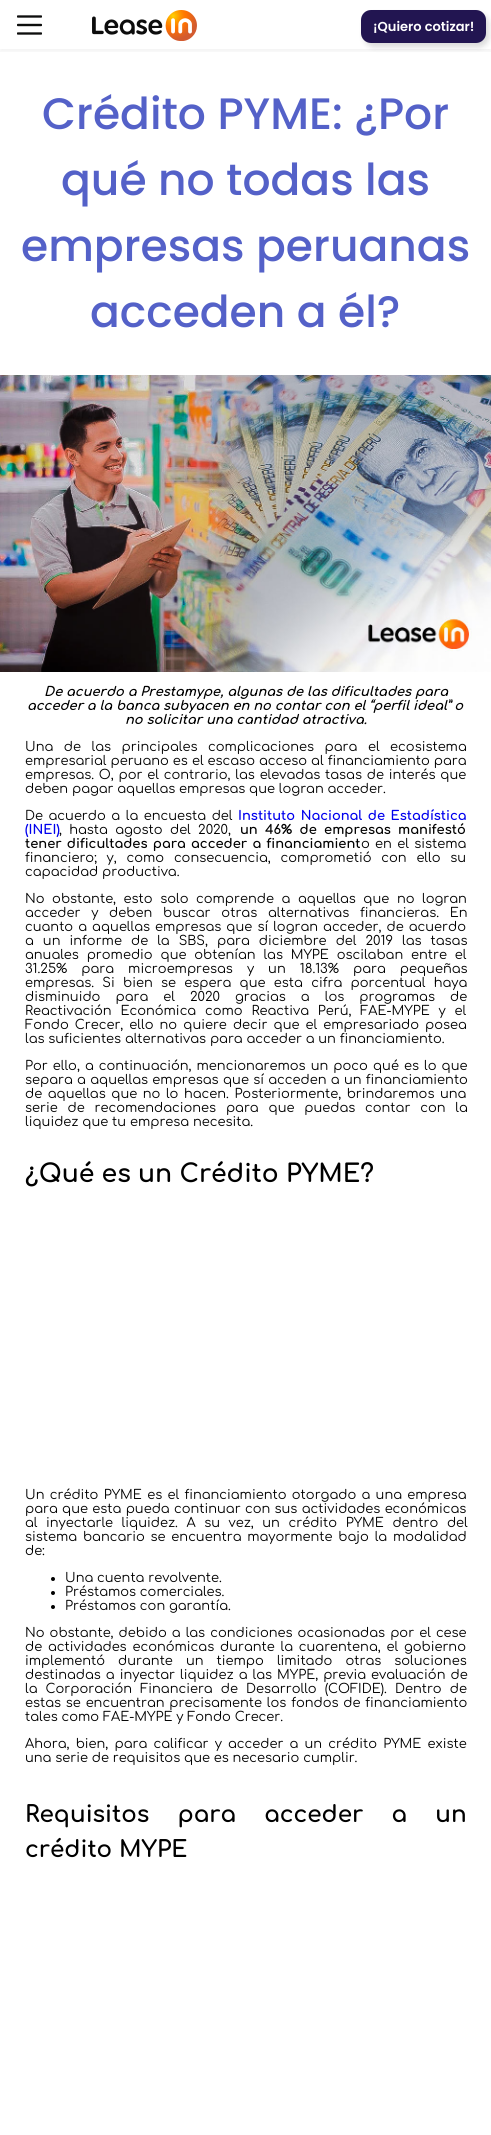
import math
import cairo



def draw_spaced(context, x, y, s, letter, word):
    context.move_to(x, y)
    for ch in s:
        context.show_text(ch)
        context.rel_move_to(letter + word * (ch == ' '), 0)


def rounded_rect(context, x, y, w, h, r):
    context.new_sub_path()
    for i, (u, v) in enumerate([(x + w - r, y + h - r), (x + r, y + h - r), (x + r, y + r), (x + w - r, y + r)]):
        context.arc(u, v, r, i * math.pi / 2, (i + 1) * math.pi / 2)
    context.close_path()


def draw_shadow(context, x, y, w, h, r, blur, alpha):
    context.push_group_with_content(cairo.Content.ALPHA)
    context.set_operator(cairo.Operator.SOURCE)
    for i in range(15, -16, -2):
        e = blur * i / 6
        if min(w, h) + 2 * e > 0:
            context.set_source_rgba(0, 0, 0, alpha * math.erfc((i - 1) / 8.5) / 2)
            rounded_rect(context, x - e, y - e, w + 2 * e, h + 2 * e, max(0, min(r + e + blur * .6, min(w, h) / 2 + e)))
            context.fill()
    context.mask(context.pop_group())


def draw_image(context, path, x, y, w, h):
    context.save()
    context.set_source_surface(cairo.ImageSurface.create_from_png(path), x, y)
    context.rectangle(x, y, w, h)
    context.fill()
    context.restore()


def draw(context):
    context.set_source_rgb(1, 1, 1)
    context.paint()
    context.save()
    context.rectangle(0, 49, 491, 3)
    context.clip()
    context.set_source_rgb(0, 0, 0)
    draw_shadow(context, 0, 3, 491, 49, 0, 2, 0.05)
    context.restore()
    context.save()
    context.rectangle(17, 13, 25, 25)
    context.clip()
    context.new_path()
    context.move_to(18, 33.5)
    context.line_to(41, 33.5)
    context.move_to(18, 25)
    context.line_to(41, 25)
    context.move_to(18, 16.5)
    context.line_to(41, 16.5)
    context.set_source_rgb(13 / 255, 14 / 255, 13 / 255)
    context.set_line_width(2.4)
    context.set_line_cap(cairo.LineCap.ROUND)
    context.set_line_join(cairo.LineJoin.ROUND)
    context.stroke()
    context.restore()
    draw_image(context, "images/1.png", 92, 10, 105, 31)
    context.set_source_rgb(0, 0, 0)
    draw_shadow(context, 364, 14, 125, 33, 10, 3, 0.15)
    context.set_source_rgb(34 / 255, 21 / 255, 81 / 255)
    rounded_rect(context, 361, 10, 125, 33, 10)
    context.fill()
    draw_image(context, "images/2.png", 0, 375, 491, 297)
    context.set_source_rgb(0, 0, 0)
    context.arc(53, 1579, 2, 0, 2 * math.pi)
    context.fill()
    context.arc(53, 1593, 2, 0, 2 * math.pi)
    context.fill()
    context.arc(53, 1607, 2, 0, 2 * math.pi)
    context.fill()
    context.select_font_face("Poppins SemiBold")
    context.set_font_size(13)
    context.set_source_rgb(1, 1, 1)
    context.move_to(373, 31)
    context.show_text("¡Quiero cotizar!")
    context.select_font_face("Poppins Medium")
    context.set_font_size(44)
    context.set_source_rgb(84 / 255, 97 / 255, 200 / 255)
    context.move_to(42, 129)
    context.show_text("Crédito PYME: ¿Por")
    context.move_to(61, 195)
    context.show_text("qué no todas las")
    context.move_to(21, 261)
    context.show_text("empresas peruanas")
    context.move_to(90, 327)
    context.show_text("acceden a él?")
    context.select_font_face("Comfortaa", cairo.FontSlant.ITALIC, cairo.FontWeight.BOLD)
    context.set_font_size(13)
    context.set_source_rgb(0, 0, 0)
    context.move_to(44, 696)
    context.show_text("De acuerdo a Prestamype, algunas de las dificultades para")
    context.move_to(27, 710)
    context.show_text("acceder a la banca subyacen en no contar con el “perfil ideal” o")
    context.move_to(125, 724)
    context.show_text("no solicitar una cantidad atractiva.")
    context.select_font_face("Comfortaa")
    draw_spaced(context, 25, 751, "Una de las principales complicaciones para el ecosistema", 0, 6.75)
    draw_spaced(context, 25, 765, "empresarial peruano es el escaso acceso al financiamiento para", 0, 0.25)
    draw_spaced(context, 25, 779, "empresas. O, por el contrario, las elevadas tasas de interés que", 0, 1)
    context.move_to(25, 793)
    context.show_text("deben pagar aquellas empresas que logran acceder.")
    draw_spaced(context, 25, 820, "De acuerdo a la encuesta del", 0, 1.75)
    context.select_font_face("Comfortaa", cairo.FontSlant.NORMAL, cairo.FontWeight.BOLD)
    context.set_source_rgb(0, 0, 238 / 255)
    draw_spaced(context, 238, 820, "Instituto Nacional de Estadística", 0, 1.75)
    context.move_to(25, 834)
    context.show_text("(INEI)")
    context.select_font_face("Comfortaa")
    context.set_source_rgb(0, 0, 0)
    draw_spaced(context, 59, 834, ", hasta agosto del 2020,", 0, 3.5)
    context.select_font_face("Comfortaa", cairo.FontSlant.NORMAL, cairo.FontWeight.BOLD)
    draw_spaced(context, 240, 834, "un 46% de empresas manifestó", 0, 3.5)
    draw_spaced(context, 25, 848, "tener dificultades para acceder a financiamient", 0, 1.5)
    context.select_font_face("Comfortaa")
    draw_spaced(context, 361, 848, "o en el sistema", 0, 1.5)
    draw_spaced(context, 25, 862, "financiero; y, como consecuencia, comprometió con ello su", 0, 6)
    context.move_to(25, 876)
    context.show_text("capacidad productiva.")
    draw_spaced(context, 25, 903, "No obstante, esto solo comprende a aquellas que no logran", 0, 3.75)
    draw_spaced(context, 25, 917, "acceder y deben buscar otras alternativas financieras. En", 0, 7)
    draw_spaced(context, 25, 931, "cuanto a aquellas empresas que sí logran acceder, de acuerdo", 0, 1.25)
    draw_spaced(context, 25, 945, "a un informe de la SBS, para diciembre del 2019 las tasas", 0, 5.25)
    draw_spaced(context, 25, 959, "anuales promedio que obtenían las MYPE oscilaban entre el", 0, 4)
    draw_spaced(context, 25, 973, "31.25% para microempresas y un 18.13% para pequeñas", 0, 10.25)
    draw_spaced(context, 25, 987, "empresas. Si bien se espera que esta cifra porcentual haya", 0, 4.5)
    draw_spaced(context, 25, 1001, "disminuido para el 2020 gracias a los programas de", 0, 11.25)
    draw_spaced(context, 25, 1015, "Reactivación Económica como Reactiva Perú, FAE-MYPE y el", 0, 5)
    draw_spaced(context, 25, 1029, "Fondo Crecer, ello no quiere decir que el empresariado posea", 0, 2.25)
    context.move_to(25, 1043)
    context.show_text("las suficientes alternativas para acceder a un financiamiento.")
    draw_spaced(context, 25, 1070, "Por ello, a continuación, mencionaremos un poco qué es lo que", 0, 1.25)
    draw_spaced(context, 25, 1084, "separa a aquellas empresas que sí acceden a un financiamiento", 0, 0.5)
    draw_spaced(context, 25, 1098, "de aquellas que no lo hacen. Posteriormente, brindaremos una", 0, 1.75)
    draw_spaced(context, 25, 1112, "serie de recomendaciones para que puedas contar con la", 0, 6)
    context.move_to(25, 1126)
    context.show_text("liquidez que tu empresa necesita.")
    context.select_font_face("Comfortaa", cairo.FontSlant.NORMAL, cairo.FontWeight.BOLD)
    context.set_font_size(25)
    context.move_to(25, 1182)
    context.show_text("¿Qué es un Crédito PYME?")
    context.select_font_face("Comfortaa")
    context.set_font_size(13)
    draw_spaced(context, 25, 1499, "Un crédito PYME es el financiamiento otorgado a una empresa", 0, 1.5)
    draw_spaced(context, 25, 1513, "para que esta pueda continuar con sus actividades económicas", 0, 0.5)
    draw_spaced(context, 25, 1527, "al inyectarle liquidez. A su vez, un crédito PYME dentro del", 0, 4.75)
    draw_spaced(context, 25, 1541, "sistema bancario se encuentra mayormente bajo la modalidad", 0, 2)
    context.move_to(25, 1555)
    context.show_text("de:")
    context.move_to(65, 1582)
    context.show_text("Una cuenta revolvente.")
    context.move_to(65, 1596)
    context.show_text("Préstamos comerciales.")
    context.move_to(65, 1610)
    context.show_text("Préstamos con garantía.")
    draw_spaced(context, 25, 1637, "No obstante, debido a las condiciones ocasionadas por el cese", 0, 1.25)
    draw_spaced(context, 25, 1651, "de actividades económicas durante la cuarentena, el gobierno", 0, 2)
    draw_spaced(context, 25, 1665, "implementó durante un tiempo limitado otras soluciones", 0, 9.25)
    draw_spaced(context, 25, 1679, "destinadas a inyectar liquidez a las MYPE, previa evaluación de", 0, 1.25)
    draw_spaced(context, 25, 1693, "la Corporación Financiera de Desarrollo (COFIDE). Dentro de", 0, 4.25)
    draw_spaced(context, 25, 1707, "estas se encuentran precisamente los fondos de financiamiento", 0, 1)
    context.move_to(25, 1721)
    context.show_text("tales como FAE-MYPE y Fondo Crecer.")
    draw_spaced(context, 25, 1748, "Ahora, bien, para calificar y acceder a un crédito PYME existe", 0, 2.4)
    context.move_to(25, 1762)
    context.show_text("una serie de requisitos que es necesario cumplir.")
    context.select_font_face("Comfortaa", cairo.FontSlant.NORMAL, cairo.FontWeight.BOLD)
    context.set_font_size(23)
    draw_spaced(context, 25, 1822, "Requisitos para acceder a un", 0, 21.5)
    context.move_to(25, 1857)
    context.show_text("crédito MYPE")


surface = cairo.ImageSurface(cairo.Format.RGB24, 491, 2135)
context = cairo.Context(surface)
options = cairo.FontOptions()
options.set_hint_metrics(cairo.HintMetrics.OFF)
options.set_hint_style(cairo.HintStyle.NONE)
context.set_font_options(options)
context.set_miter_limit(4)
draw(context)
surface.write_to_png("out.png")
